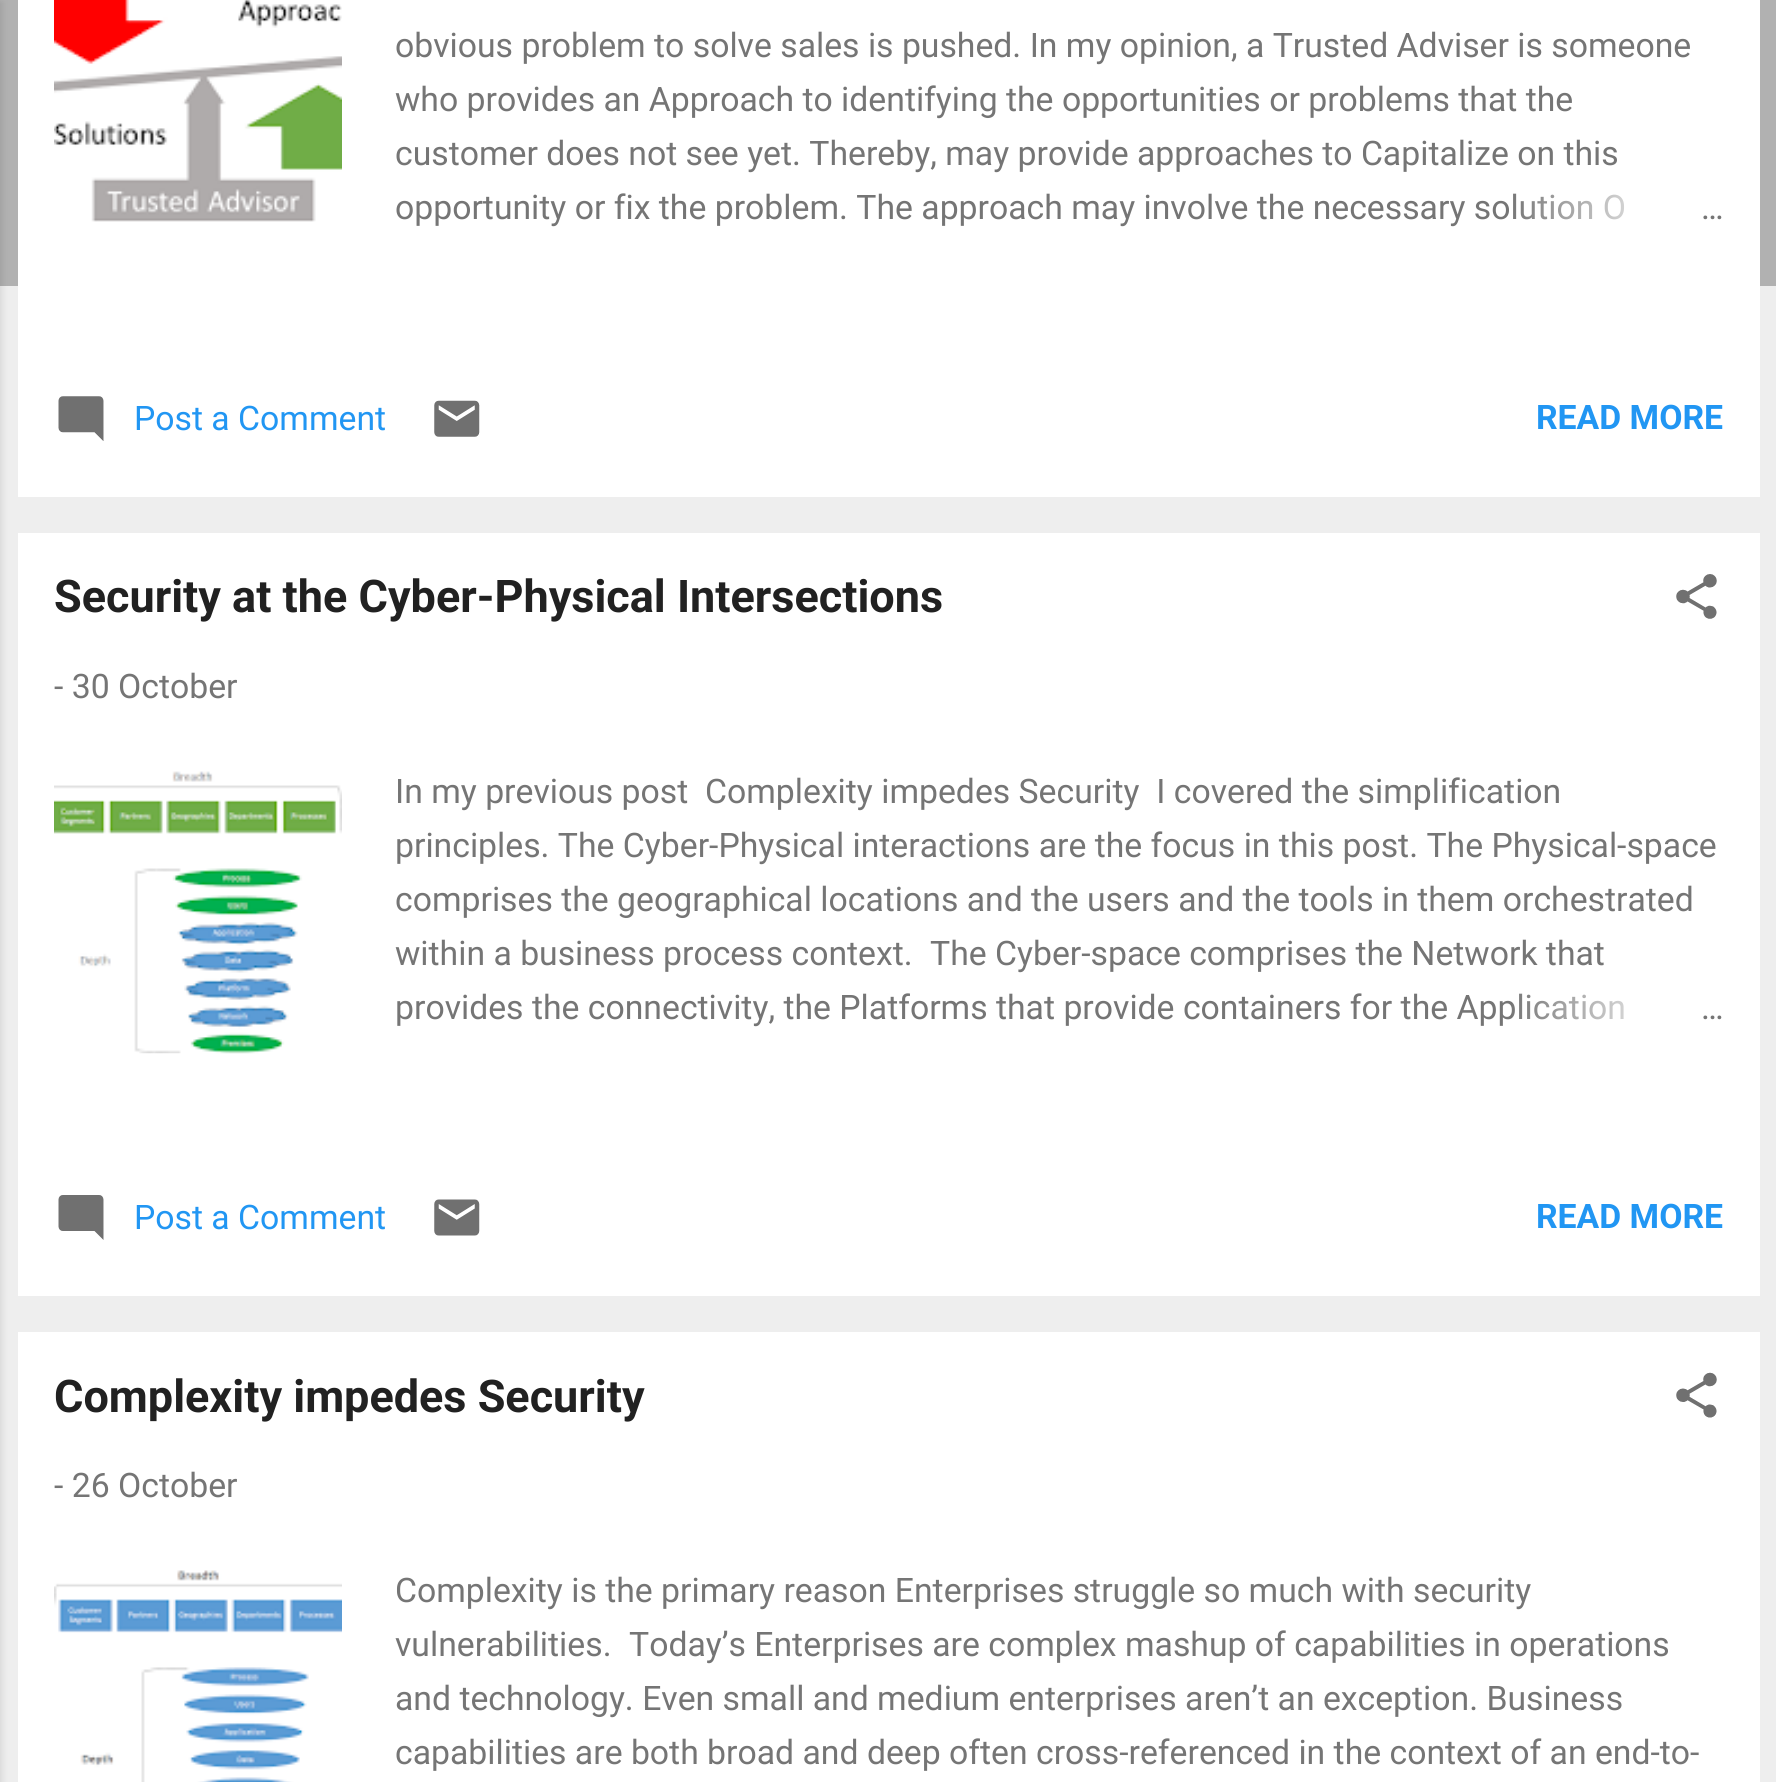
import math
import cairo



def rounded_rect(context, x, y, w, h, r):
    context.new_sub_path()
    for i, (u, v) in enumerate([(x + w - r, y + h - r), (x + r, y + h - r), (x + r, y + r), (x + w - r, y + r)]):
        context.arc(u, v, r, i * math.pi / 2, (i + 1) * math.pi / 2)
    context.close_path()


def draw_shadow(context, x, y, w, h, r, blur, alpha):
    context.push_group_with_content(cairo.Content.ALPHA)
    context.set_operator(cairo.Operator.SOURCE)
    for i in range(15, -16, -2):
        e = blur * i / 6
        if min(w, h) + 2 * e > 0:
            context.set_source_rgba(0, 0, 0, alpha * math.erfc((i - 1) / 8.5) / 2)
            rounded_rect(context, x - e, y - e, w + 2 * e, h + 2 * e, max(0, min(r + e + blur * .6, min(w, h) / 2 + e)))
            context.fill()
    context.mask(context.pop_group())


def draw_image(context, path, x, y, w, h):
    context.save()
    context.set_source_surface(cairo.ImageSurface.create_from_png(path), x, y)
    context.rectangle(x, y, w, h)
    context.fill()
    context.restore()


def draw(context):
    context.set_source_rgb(238 / 255, 238 / 255, 238 / 255)
    context.paint()
    context.set_source_rgb(177 / 255, 177 / 255, 177 / 255)
    context.rectangle(0, 0, 1776, 286)
    context.fill()
    context.set_source_rgb(0, 0, 0)
    draw_shadow(context, -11, 2, 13, 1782, 0, 3.5, 0.1)
    context.set_source_rgb(1, 1, 1)
    context.rectangle(18, 0, 1742, 497)
    context.fill()
    draw_image(context, "images/1.png", 54, 0, 288, 222)
    draw_image(context, "images/2.png", 58, 396, 46, 45)
    draw_image(context, "images/3.png", 434, 400, 46, 37)
    context.rectangle(18, 533, 1742, 763)
    context.fill()
    draw_image(context, "images/4.png", 1676, 574, 41, 45)
    draw_image(context, "images/5.png", 54, 771, 288, 283)
    draw_image(context, "images/6.png", 58, 1195, 46, 45)
    draw_image(context, "images/7.png", 434, 1199, 46, 37)
    context.rectangle(18, 1332, 1742, 450)
    context.fill()
    draw_image(context, "images/8.png", 1676, 1372, 41, 46)
    draw_image(context, "images/9.png", 54, 1570, 288, 212)
    context.select_font_face("Roboto")
    context.set_font_size(33.75)
    context.set_source_rgb(117 / 255, 117 / 255, 117 / 255)
    context.move_to(395, 57)
    context.show_text("obvious problem to solve sales is pushed. In my opinion, a Trusted Adviser is someone")
    context.move_to(395, 111)
    context.show_text("who provides an Approach to identifying the opportunities or problems that the")
    context.move_to(395, 165)
    context.show_text("customer does not see yet. Thereby, may provide approaches to Capitalize on this")
    context.move_to(395, 219)
    context.show_text("opportunity or fix the problem. The approach may involve the necessary solution O")
    gradient = cairo.LinearGradient(1724, 209, 1508, 209)
    gradient.add_color_stop_rgba(0, 1, 1, 1, 1)
    gradient.add_color_stop_rgba(0.2, 1, 1, 1, 1)
    gradient.add_color_stop_rgba(1, 1, 1, 1, 0)
    context.set_source(gradient)
    context.rectangle(1513, 194, 112, 26)
    context.fill()
    context.set_source_rgb(117 / 255, 117 / 255, 117 / 255)
    context.move_to(1701, 219)
    context.show_text("…")
    context.set_source_rgb(33 / 255, 150 / 255, 243 / 255)
    context.move_to(134, 430)
    context.show_text("Post a Comment")
    context.select_font_face("Roboto", cairo.FontSlant.NORMAL, cairo.FontWeight.BOLD)
    context.move_to(1536, 429)
    context.show_text("READ MORE")
    context.set_font_size(45)
    context.set_source_rgb(33 / 255, 33 / 255, 33 / 255)
    context.move_to(54, 612)
    context.show_text("Security at the Cyber-Physical Intersections")
    context.select_font_face("Roboto")
    context.set_font_size(33.75)
    context.set_source_rgb(117 / 255, 117 / 255, 117 / 255)
    context.move_to(54, 698)
    context.show_text("- 30 October")
    context.move_to(395, 803)
    context.show_text("In my previous post  Complexity impedes Security  I covered the simplification")
    context.move_to(395, 857)
    context.show_text("principles. The Cyber-Physical interactions are the focus in this post. The Physical-space")
    context.move_to(395, 911)
    context.show_text("comprises the geographical locations and the users and the tools in them orchestrated")
    context.move_to(395, 965)
    context.show_text("within a business process context.")
    context.move_to(930, 965)
    context.show_text("The Cyber-space comprises the Network that")
    context.move_to(395, 1019)
    context.show_text("provides the connectivity, the Platforms that provide containers for the Application")
    gradient = cairo.LinearGradient(1724, 1008, 1508, 1008)
    gradient.add_color_stop_rgba(0, 1, 1, 1, 1)
    gradient.add_color_stop_rgba(0.2, 1, 1, 1, 1)
    gradient.add_color_stop_rgba(1, 1, 1, 1, 0)
    context.set_source(gradient)
    context.rectangle(1512, 993, 112, 27)
    context.fill()
    context.set_source_rgb(117 / 255, 117 / 255, 117 / 255)
    context.move_to(1701, 1019)
    context.show_text("…")
    context.set_source_rgb(33 / 255, 150 / 255, 243 / 255)
    context.move_to(134, 1229)
    context.show_text("Post a Comment")
    context.select_font_face("Roboto", cairo.FontSlant.NORMAL, cairo.FontWeight.BOLD)
    context.move_to(1536, 1228)
    context.show_text("READ MORE")
    context.set_font_size(45)
    context.set_source_rgb(33 / 255, 33 / 255, 33 / 255)
    context.move_to(54, 1412)
    context.show_text("Complexity impedes Security")
    context.select_font_face("Roboto")
    context.set_font_size(33.75)
    context.set_source_rgb(117 / 255, 117 / 255, 117 / 255)
    context.move_to(54, 1497)
    context.show_text("- 26 October")
    context.move_to(395, 1602)
    context.show_text("Complexity is the primary reason Enterprises struggle so much with security")
    context.move_to(395, 1656)
    context.show_text("vulnerabilities.")
    context.move_to(629, 1656)
    context.show_text("Today’s Enterprises are complex mashup of capabilities in operations")
    context.move_to(395, 1710)
    context.show_text("and technology. Even small and medium enterprises aren’t an exception. Business")
    context.move_to(395, 1764)
    context.show_text("capabilities are both broad and deep often cross-referenced in the context of an end-to-")


surface = cairo.ImageSurface(cairo.Format.RGB24, 1776, 1782)
context = cairo.Context(surface)
options = cairo.FontOptions()
options.set_hint_metrics(cairo.HintMetrics.OFF)
options.set_hint_style(cairo.HintStyle.NONE)
context.set_font_options(options)
context.set_miter_limit(4)
draw(context)
surface.write_to_png("out.png")
